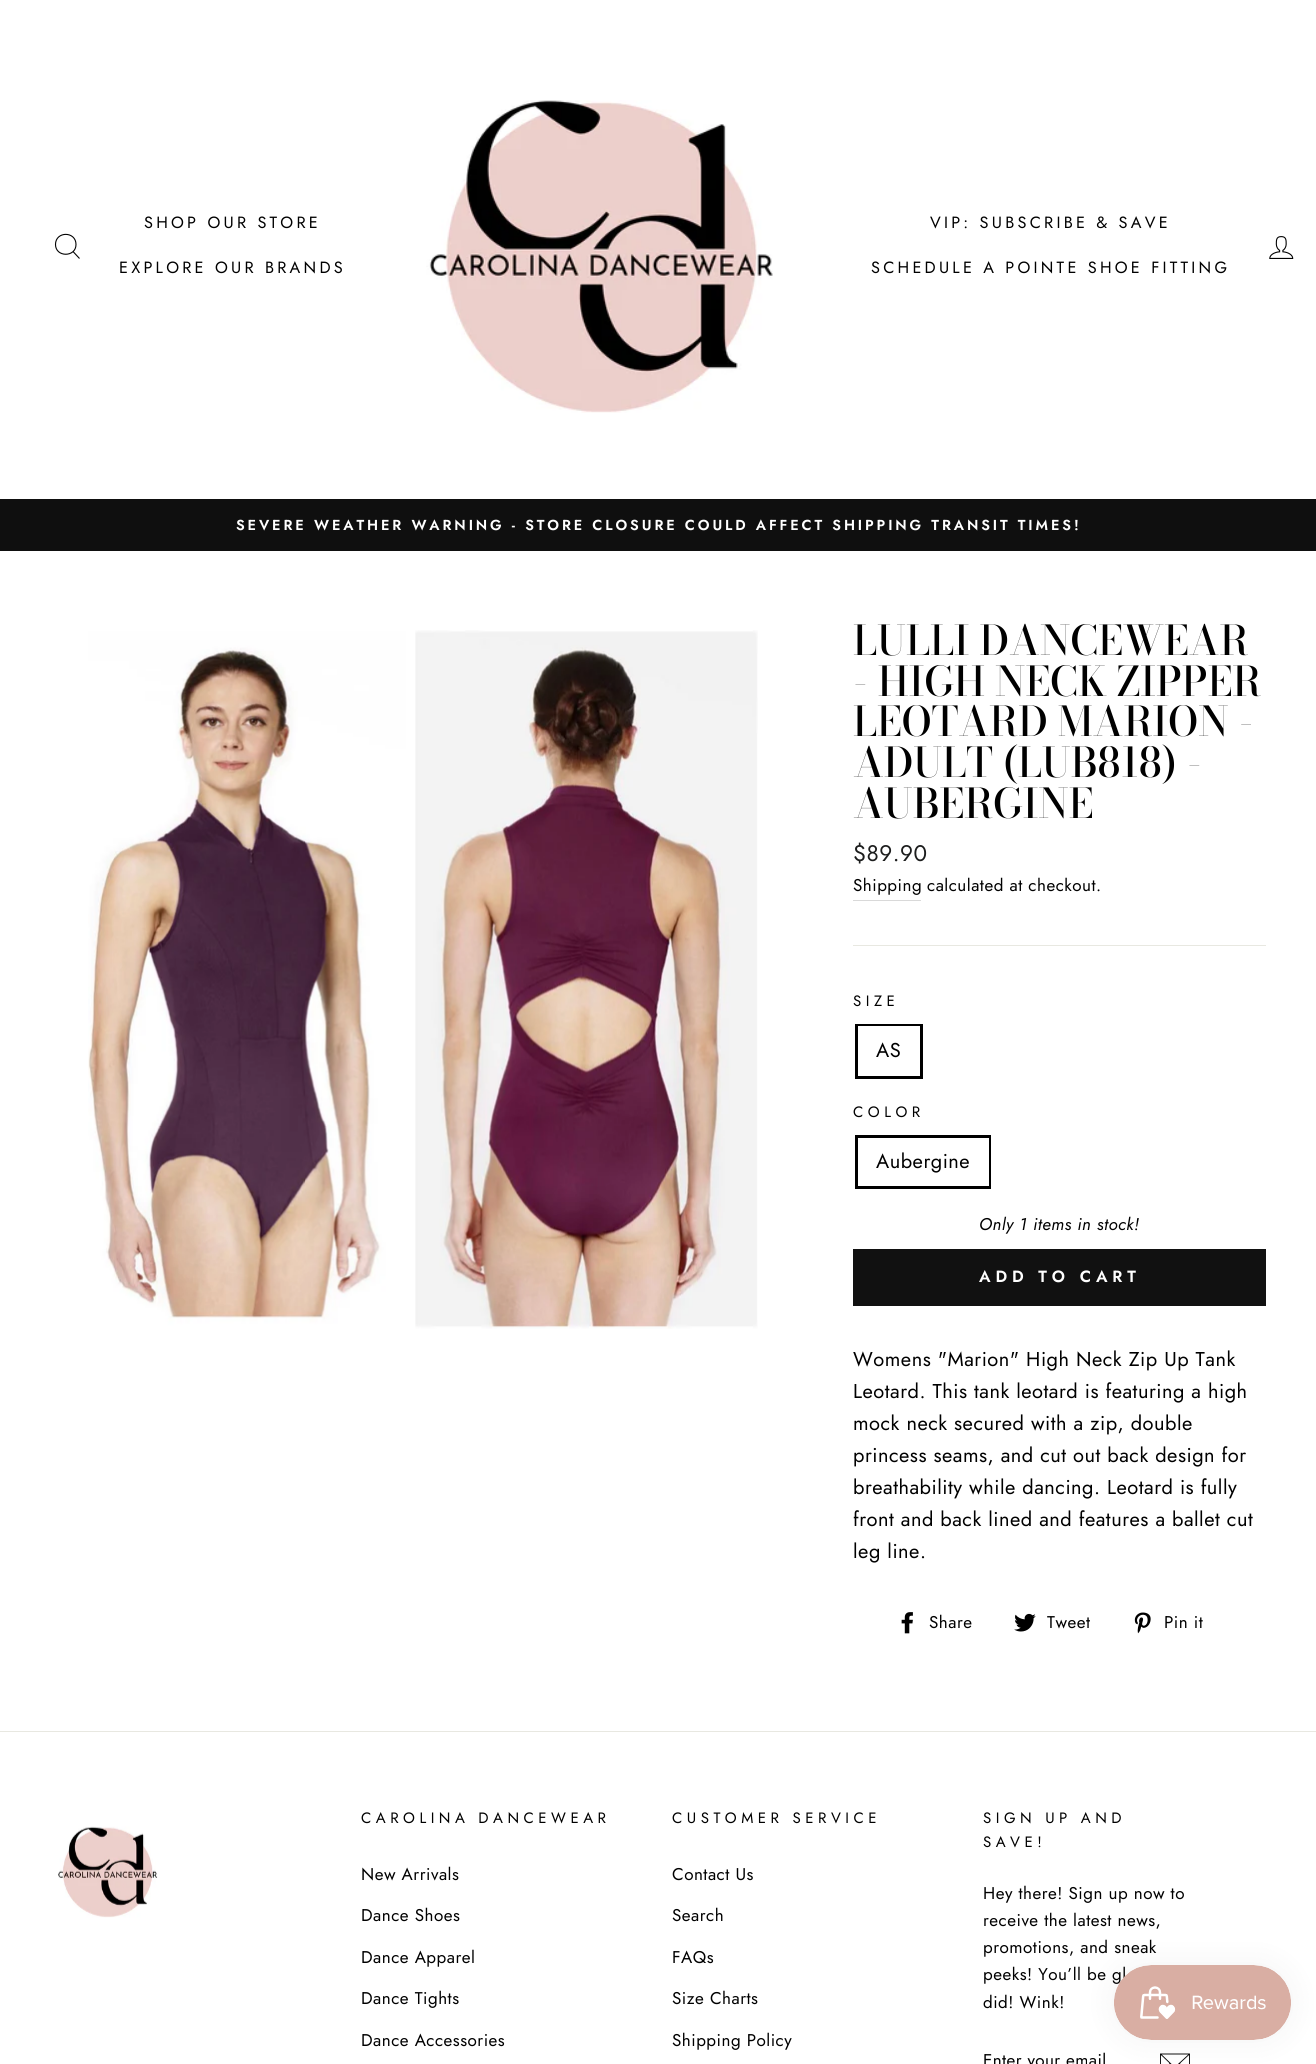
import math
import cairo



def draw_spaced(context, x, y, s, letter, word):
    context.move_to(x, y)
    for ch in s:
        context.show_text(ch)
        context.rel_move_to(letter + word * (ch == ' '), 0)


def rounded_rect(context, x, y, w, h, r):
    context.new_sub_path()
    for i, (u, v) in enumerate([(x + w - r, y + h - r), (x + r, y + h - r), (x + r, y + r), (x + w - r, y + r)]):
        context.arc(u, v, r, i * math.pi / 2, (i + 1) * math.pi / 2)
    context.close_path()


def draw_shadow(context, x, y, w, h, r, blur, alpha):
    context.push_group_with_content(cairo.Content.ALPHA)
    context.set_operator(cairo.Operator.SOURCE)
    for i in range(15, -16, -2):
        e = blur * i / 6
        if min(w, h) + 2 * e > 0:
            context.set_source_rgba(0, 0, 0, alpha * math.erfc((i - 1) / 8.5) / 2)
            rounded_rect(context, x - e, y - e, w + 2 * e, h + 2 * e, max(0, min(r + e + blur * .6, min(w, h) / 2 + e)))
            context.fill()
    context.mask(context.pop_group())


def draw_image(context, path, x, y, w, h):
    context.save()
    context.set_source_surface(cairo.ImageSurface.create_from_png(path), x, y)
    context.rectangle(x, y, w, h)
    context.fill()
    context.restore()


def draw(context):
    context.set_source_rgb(1, 1, 1)
    context.paint()
    context.new_path()
    context.move_to(76, 244.5)
    context.curve_to(76, 257.5, 55.5, 257.5, 55.5, 244.5)
    context.curve_to(55.5, 231, 76, 231, 76, 244.5)
    context.close_path()
    context.move_to(79.5, 258.5)
    context.line_to(73, 251.5)
    context.set_source_rgb(0, 0, 0)
    context.set_line_width(1.1)
    context.stroke()
    draw_image(context, "images/1.png", 426, 100, 347, 313)
    draw_image(context, "images/2.png", 1269, 236, 25, 23)
    context.set_source_rgb(15 / 255, 15 / 255, 15 / 255)
    context.rectangle(0, 499, 1316, 52)
    context.fill()
    draw_image(context, "images/3.png", 88, 630, 670, 699)
    context.set_source_rgb(217 / 255, 217 / 255, 217 / 255)
    context.rectangle(853, 900, 68, 1)
    context.fill()
    context.set_source_rgb(232 / 255, 232 / 255, 225 / 255)
    context.rectangle(853, 945, 413, 1)
    context.fill()
    context.rectangle(856.5, 1025.5, 65, 52)
    context.set_source_rgb(0, 0, 0)
    context.set_line_width(3)
    context.stroke()
    context.set_source_rgb(1, 1, 1)
    context.rectangle(858, 1026, 62, 1)
    context.fill()
    context.rectangle(856.5, 1136.5, 133, 51)
    context.set_source_rgb(0, 0, 0)
    context.stroke()
    context.set_source_rgb(1, 1, 1)
    context.rectangle(988, 1138, 1, 48)
    context.fill()
    context.set_source_rgb(17 / 255, 17 / 255, 17 / 255)
    context.rectangle(853, 1249, 413, 57)
    context.fill()
    draw_image(context, "images/4.png", 901, 1612, 12, 22)
    draw_image(context, "images/5.png", 1014, 1613, 22, 19)
    draw_image(context, "images/6.png", 1134, 1612, 17, 22)
    context.set_source_rgb(232 / 255, 232 / 255, 225 / 255)
    context.rectangle(0, 1731, 1316, 1)
    context.fill()
    draw_image(context, "images/7.png", 58, 1826, 100, 92)
    context.new_path()
    context.move_to(1189.5, 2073)
    context.line_to(1160.5, 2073)
    context.line_to(1160.5, 2054)
    context.line_to(1189.5, 2054)
    context.close_path()
    context.move_to(1160.5, 2054)
    context.line_to(1172.5, 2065.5)
    context.line_to(1177, 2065.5)
    context.line_to(1189.5, 2054)
    context.move_to(1170, 2063.5)
    context.line_to(1160.5, 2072.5)
    context.move_to(1189, 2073)
    context.line_to(1179.5, 2063.5)
    context.set_source_rgb(0, 0, 0)
    context.set_line_width(0.9)
    context.stroke()
    context.set_source_rgb(0, 0, 0)
    draw_shadow(context, 1114, 1965, 177, 75, 37.5, 15.5, 0.05)
    context.select_font_face("Jost")
    context.set_font_size(16.25)
    context.set_source_rgb(0, 0, 0)
    draw_spaced(context, 144, 228, "SHOP OUR STORE", 3.25, 0)
    draw_spaced(context, 119, 273, "EXPLORE OUR BRANDS", 3.25, 0)
    draw_spaced(context, 930, 228, "VIP: SUBSCRIBE & SAVE", 3.25, 0)
    draw_spaced(context, 871, 273, "SCHEDULE A POINTE SHOE FITTING", 3.25, 0)
    context.select_font_face("Jost SemiBold")
    context.set_font_size(14.45)
    context.set_source_rgb(1, 1, 1)
    draw_spaced(context, 236, 530, "SEVERE WEATHER WARNING - STORE CLOSURE COULD AFFECT SHIPPING TRANSIT TIMES!", 2.9, 0)
    context.select_font_face("Bodoni Moda Medium")
    context.set_font_size(40.8)
    context.set_source_rgb(0, 0, 0)
    context.move_to(853, 655)
    context.show_text("LULLI DANCEWEAR")
    context.move_to(853, 696)
    context.show_text("- HIGH NECK ZIPPER")
    context.move_to(853, 736)
    context.show_text("LEOTARD MARION -")
    context.move_to(853, 777)
    context.show_text("ADULT (LUB818) -")
    context.move_to(853, 818)
    context.show_text("AUBERGINE")
    context.select_font_face("Jost")
    context.set_font_size(22.5)
    context.set_source_rgb(28 / 255, 29 / 255, 29 / 255)
    draw_spaced(context, 853, 861, "$89.90", 0.5, 0)
    context.set_font_size(17)
    context.set_source_rgb(0, 0, 0)
    draw_spaced(context, 853, 891, "Shipping", 0.5, 0)
    draw_spaced(context, 927, 891, "calculated at checkout.", 0.5, 0)
    context.set_font_size(15)
    draw_spaced(context, 853, 1006, "SIZE", 4.5, 0)
    context.set_font_size(20)
    draw_spaced(context, 876, 1057, "AS", 0.5, 0)
    context.set_font_size(15)
    draw_spaced(context, 853, 1117, "COLOR", 4.5, 0)
    context.set_font_size(20)
    draw_spaced(context, 876, 1168, "Aubergine", 0.5, 0)
    context.select_font_face("Jost", cairo.FontSlant.ITALIC)
    context.set_font_size(17)
    draw_spaced(context, 979, 1230, "Only 1 items in stock!", 0.5, 0)
    context.select_font_face("Jost SemiBold")
    context.set_font_size(16.25)
    context.set_source_rgb(1, 1, 1)
    draw_spaced(context, 979, 1282, "ADD TO CART", 4.9, 0)
    context.select_font_face("Jost")
    context.set_font_size(20)
    context.set_source_rgb(0, 0, 0)
    draw_spaced(context, 853, 1366, "Womens \"Marion\" High Neck Zip Up Tank", 0.5, 0)
    draw_spaced(context, 853, 1398, "Leotard. This tank leotard is featuring a high", 0.5, 0)
    draw_spaced(context, 853, 1430, "mock neck secured with a zip, double", 0.5, 0)
    draw_spaced(context, 853, 1462, "princess seams, and cut out back design for", 0.5, 0)
    draw_spaced(context, 853, 1494, "breathability while dancing. Leotard is fully", 0.5, 0)
    draw_spaced(context, 853, 1526, "front and back lined and features a ballet cut", 0.5, 0)
    draw_spaced(context, 853, 1558, "leg line.", 0.5, 0)
    context.set_font_size(17)
    draw_spaced(context, 929, 1628, "Share", 0.5, 0)
    draw_spaced(context, 1047, 1628, "Tweet", 0.5, 0)
    draw_spaced(context, 1164, 1628, "Pin it", 0.5, 0)
    context.set_font_size(15)
    draw_spaced(context, 361, 1823, "CAROLINA DANCEWEAR", 4.5, 0)
    context.set_font_size(17)
    draw_spaced(context, 361, 1880, "New Arrivals", 0.5, 0)
    draw_spaced(context, 361, 1921, "Dance Shoes", 0.5, 0)
    draw_spaced(context, 361, 1963, "Dance Apparel", 0.5, 0)
    draw_spaced(context, 361, 2004, "Dance Tights", 0.5, 0)
    draw_spaced(context, 361, 2046, "Dance Accessories", 0.5, 0)
    context.set_font_size(15)
    draw_spaced(context, 672, 1823, "CUSTOMER SERVICE", 4.5, 0)
    context.set_font_size(17)
    draw_spaced(context, 672, 1880, "Contact Us", 0.5, 0)
    draw_spaced(context, 672, 1921, "Search", 0.5, 0)
    draw_spaced(context, 672, 1963, "FAQs", 0.5, 0)
    draw_spaced(context, 672, 2004, "Size Charts", 0.5, 0)
    draw_spaced(context, 672, 2046, "Shipping Policy", 0.5, 0)
    context.set_font_size(15)
    draw_spaced(context, 983, 1823, "SIGN UP AND", 4.5, 0)
    draw_spaced(context, 983, 1847, "SAVE!", 4.5, 0)
    context.set_font_size(17)
    draw_spaced(context, 983, 1899, "Hey there! Sign up now to", 0.5, 0)
    draw_spaced(context, 983, 1926, "receive the latest news,", 0.5, 0)
    draw_spaced(context, 983, 1953, "promotions, and sneak", 0.5, 0)
    draw_spaced(context, 983, 1980, "peeks! You’ll be gl", 0.5, 0)
    draw_spaced(context, 983, 2008, "did! Wink!", 0.5, 0)
    draw_spaced(context, 983, 2066, "Enter your email", 0.4, 0)
    draw_image(context, "images/8.png", 1114, 1965, 177, 75)


surface = cairo.ImageSurface(cairo.Format.RGB24, 1316, 2064)
context = cairo.Context(surface)
options = cairo.FontOptions()
options.set_hint_metrics(cairo.HintMetrics.OFF)
options.set_hint_style(cairo.HintStyle.NONE)
context.set_font_options(options)
context.set_miter_limit(4)
draw(context)
surface.write_to_png("out.png")
